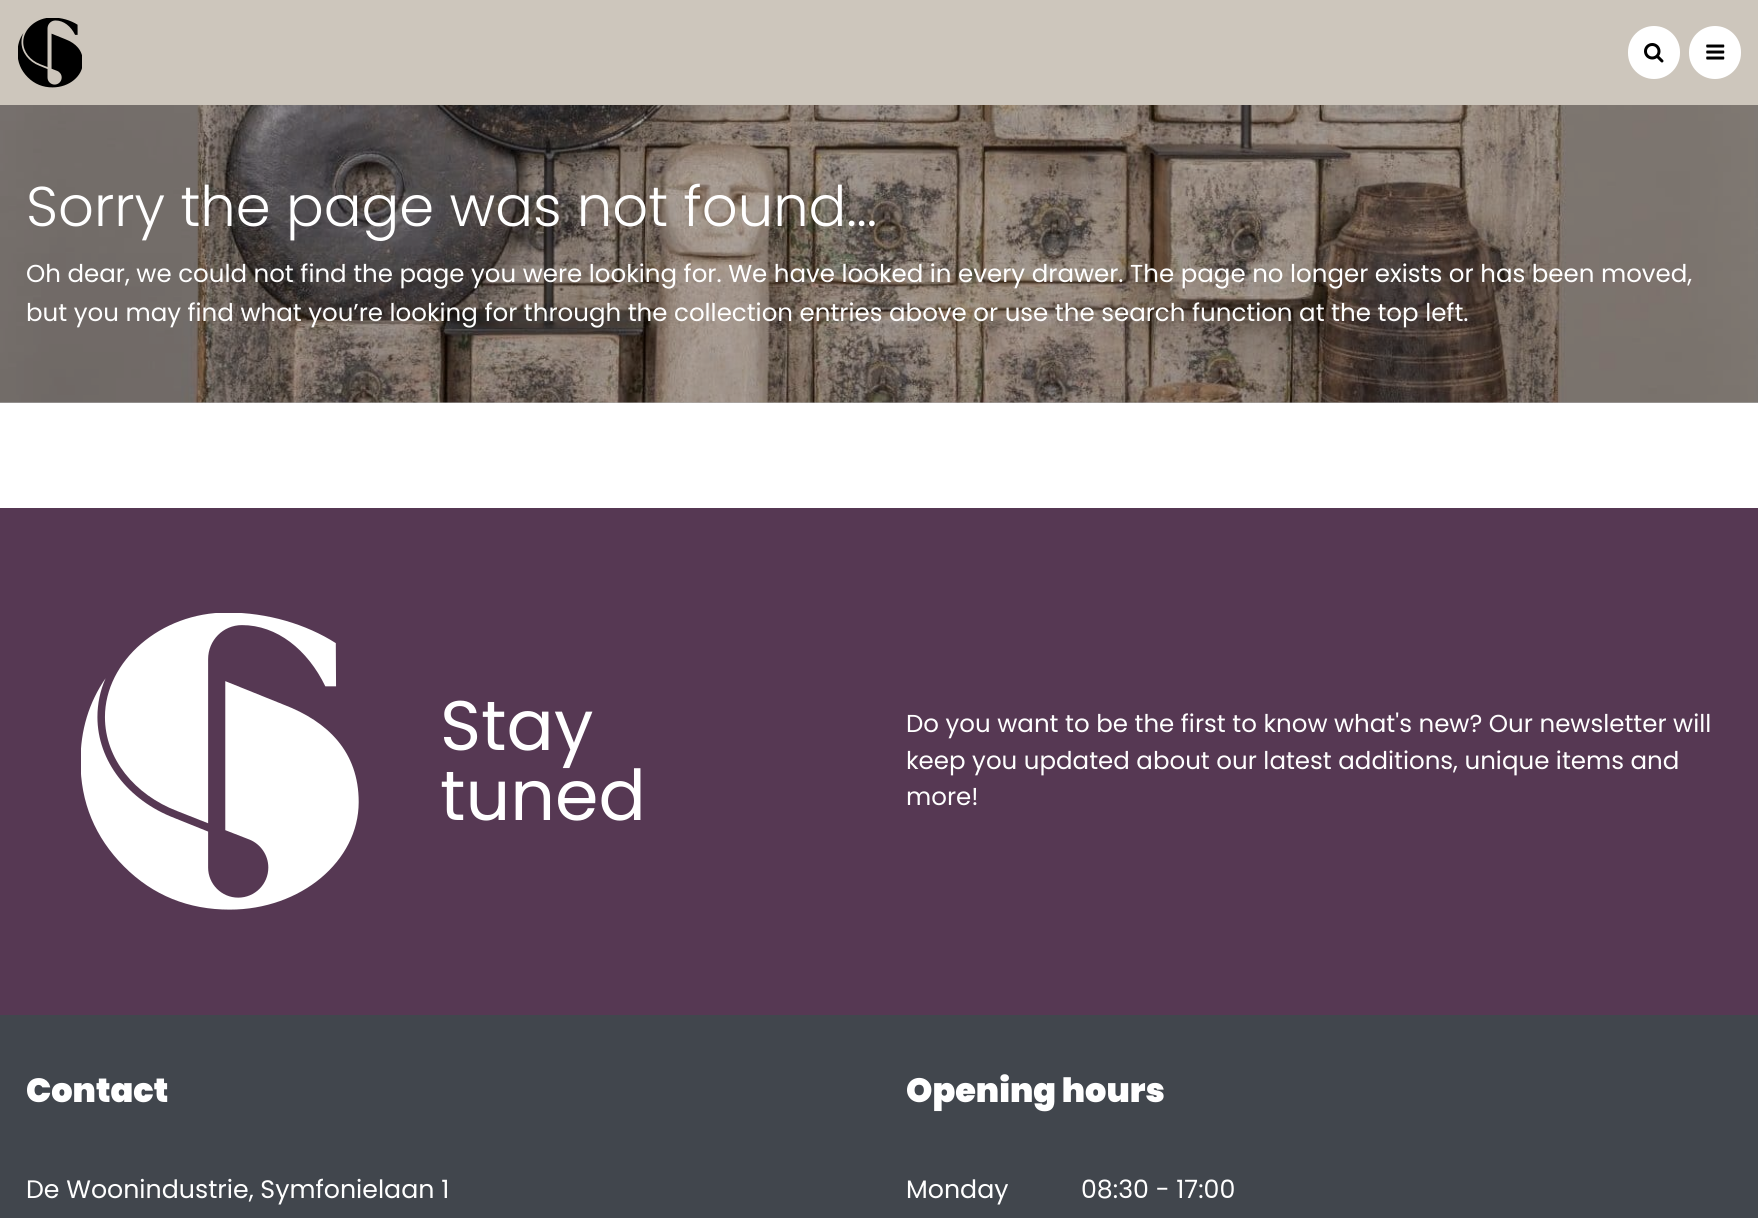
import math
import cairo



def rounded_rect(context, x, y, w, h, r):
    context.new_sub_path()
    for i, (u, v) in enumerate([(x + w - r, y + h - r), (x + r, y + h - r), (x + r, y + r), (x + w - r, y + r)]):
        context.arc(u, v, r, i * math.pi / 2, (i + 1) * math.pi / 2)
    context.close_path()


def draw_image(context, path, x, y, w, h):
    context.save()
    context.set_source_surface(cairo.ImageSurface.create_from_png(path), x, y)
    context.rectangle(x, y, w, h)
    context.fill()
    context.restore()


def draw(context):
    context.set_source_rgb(1, 1, 1)
    context.paint()
    context.set_source_rgb(179 / 255, 179 / 255, 179 / 255)
    context.rectangle(0, 402, 1758, 1)
    context.fill()
    context.set_source_rgb(205 / 255, 198 / 255, 188 / 255)
    context.rectangle(0, 0, 1758, 105)
    context.fill()
    draw_image(context, "images/1.png", 18, 18, 64, 70)
    context.set_source_rgb(1, 1, 1)
    rounded_rect(context, 1628, 26, 52, 53, 26)
    context.fill()
    draw_image(context, "images/2.png", 1644, 43, 20, 20)
    rounded_rect(context, 1689, 26, 52, 53, 26)
    context.fill()
    draw_image(context, "images/3.png", 1706, 44, 19, 16)
    draw_image(context, "images/4.png", 0, 105, 1758, 298)
    context.set_source_rgb(86 / 255, 56 / 255, 83 / 255)
    context.rectangle(0, 508, 1758, 507)
    context.fill()
    draw_image(context, "images/5.png", 81, 613, 278, 297)
    context.set_source_rgb(65 / 255, 70 / 255, 77 / 255)
    context.rectangle(0, 1015, 1758, 203)
    context.fill()
    context.select_font_face("Poppins Light")
    context.set_font_size(56)
    context.set_source_rgb(1, 1, 1)
    context.move_to(26, 226)
    context.show_text("Sorry the page was not found...")
    context.select_font_face("Poppins")
    context.set_font_size(24.5)
    context.move_to(26, 282)
    context.show_text("Oh dear, we could not find the page you were looking for. We have looked in every drawer. The page no longer exists or has been moved,")
    context.move_to(26, 321)
    context.show_text("but you may find what you’re looking for through the collection entries above or use the search function at the top left.")
    context.set_font_size(70)
    context.move_to(440, 750)
    context.show_text("Stay")
    context.move_to(440, 820)
    context.show_text("tuned")
    context.set_font_size(24.5)
    context.move_to(906, 732)
    context.show_text("Do you want to be the first to know what's new? Our newsletter will")
    context.move_to(906, 769)
    context.show_text("keep you updated about our latest additions, unique items and")
    context.move_to(906, 805)
    context.show_text("more!")
    context.select_font_face("Poppins Black")
    context.set_font_size(33.5)
    context.move_to(26, 1102)
    context.show_text("Contact")
    context.select_font_face("Poppins")
    context.set_font_size(25.25)
    context.move_to(26, 1198)
    context.show_text("De Woonindustrie, Symfonielaan 1")
    context.select_font_face("Poppins Black")
    context.set_font_size(33.5)
    context.move_to(906, 1102)
    context.show_text("Opening hours")
    context.select_font_face("Poppins")
    context.set_font_size(25.25)
    context.move_to(906, 1198)
    context.show_text("Monday")
    context.move_to(1081, 1198)
    context.show_text("08:30 - 17:00")


surface = cairo.ImageSurface(cairo.Format.RGB24, 1758, 1218)
context = cairo.Context(surface)
options = cairo.FontOptions()
options.set_hint_metrics(cairo.HintMetrics.OFF)
options.set_hint_style(cairo.HintStyle.NONE)
context.set_font_options(options)
context.set_miter_limit(4)
draw(context)
surface.write_to_png("out.png")
